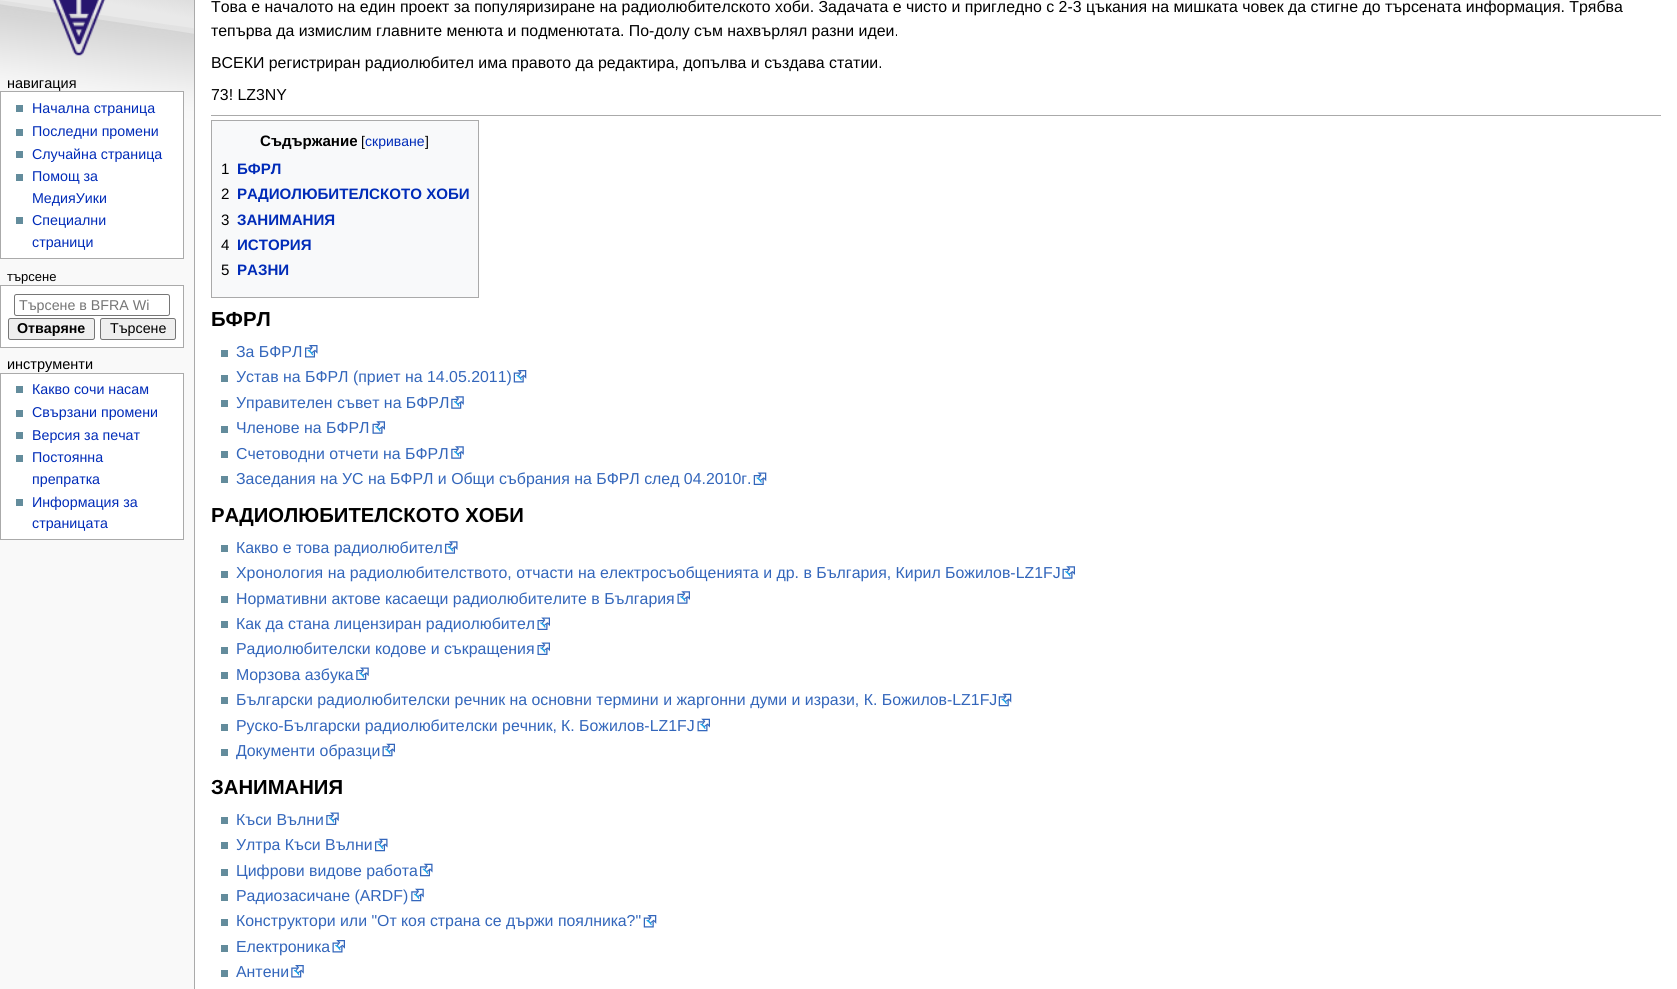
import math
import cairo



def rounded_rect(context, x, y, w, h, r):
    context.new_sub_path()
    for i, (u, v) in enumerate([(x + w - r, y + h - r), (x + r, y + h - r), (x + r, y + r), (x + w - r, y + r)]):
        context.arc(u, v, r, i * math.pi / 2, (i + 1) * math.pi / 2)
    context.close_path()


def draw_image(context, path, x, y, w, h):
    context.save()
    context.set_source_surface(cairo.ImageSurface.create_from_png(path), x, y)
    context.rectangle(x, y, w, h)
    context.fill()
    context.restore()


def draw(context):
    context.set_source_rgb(249 / 255, 249 / 255, 249 / 255)
    context.paint()
    draw_image(context, "images/1.png", 0, 0, 194, 137)
    draw_image(context, "images/2.png", 52, 0, 54, 56)
    context.set_source_rgb(1, 1, 1)
    context.rectangle(0.5, 91.5, 183, 167)
    context.fill_preserve()
    context.set_source_rgb(170 / 255, 170 / 255, 170 / 255)
    context.set_line_width(1)
    context.stroke()
    context.set_source_rgb(99 / 255, 140 / 255, 156 / 255)
    context.rectangle(16, 105, 7, 7)
    context.fill()
    context.rectangle(16, 129, 7, 7)
    context.fill()
    context.rectangle(16, 151, 7, 7)
    context.fill()
    context.rectangle(16, 174, 7, 7)
    context.fill()
    context.rectangle(16, 217, 7, 7)
    context.fill()
    context.set_source_rgb(1, 1, 1)
    context.rectangle(0.5, 285.5, 183, 62)
    context.fill_preserve()
    context.set_source_rgb(170 / 255, 170 / 255, 170 / 255)
    context.stroke()
    rounded_rect(context, 14.5, 294.5, 155, 21, 2)
    context.set_source_rgb(118 / 255, 118 / 255, 118 / 255)
    context.stroke()
    context.set_source_rgb(239 / 255, 239 / 255, 239 / 255)
    rounded_rect(context, 8.5, 318.5, 86, 21, 2)
    context.fill_preserve()
    context.set_source_rgb(118 / 255, 118 / 255, 118 / 255)
    context.stroke()
    context.set_source_rgb(239 / 255, 239 / 255, 239 / 255)
    rounded_rect(context, 100.5, 318.5, 75, 21, 2)
    context.fill_preserve()
    context.set_source_rgb(118 / 255, 118 / 255, 118 / 255)
    context.stroke()
    context.set_source_rgb(1, 1, 1)
    context.rectangle(0.5, 373.5, 183, 166)
    context.fill_preserve()
    context.set_source_rgb(170 / 255, 170 / 255, 170 / 255)
    context.stroke()
    context.set_source_rgb(99 / 255, 140 / 255, 156 / 255)
    context.rectangle(16, 386, 7, 7)
    context.fill()
    context.rectangle(16, 410, 7, 7)
    context.fill()
    context.rectangle(16, 432, 7, 7)
    context.fill()
    context.rectangle(16, 455, 7, 7)
    context.fill()
    context.rectangle(16, 499, 7, 7)
    context.fill()
    context.set_source_rgb(1, 1, 1)
    context.rectangle(195, 0, 1482, 989)
    context.fill()
    context.set_source_rgb(170 / 255, 170 / 255, 170 / 255)
    context.rectangle(194, 0, 1, 989)
    context.fill()
    context.rectangle(211, 115, 1450, 1)
    context.fill()
    context.set_source_rgb(248 / 255, 249 / 255, 250 / 255)
    context.rectangle(211.5, 120.5, 267, 177)
    context.fill_preserve()
    context.set_source_rgb(170 / 255, 170 / 255, 170 / 255)
    context.stroke()
    context.set_source_rgb(99 / 255, 140 / 255, 156 / 255)
    context.rectangle(221, 350, 7, 7)
    context.fill()
    draw_image(context, "images/3.png", 305, 345, 13, 13)
    context.rectangle(221, 375, 7, 7)
    context.fill()
    draw_image(context, "images/4.png", 513, 370, 14, 13)
    context.rectangle(221, 400, 7, 7)
    context.fill()
    draw_image(context, "images/5.png", 451, 396, 13, 13)
    context.rectangle(221, 426, 7, 7)
    context.fill()
    draw_image(context, "images/6.png", 372, 421, 13, 13)
    context.rectangle(221, 451, 7, 7)
    context.fill()
    draw_image(context, "images/5.png", 451, 446, 13, 13)
    context.rectangle(221, 476, 7, 7)
    context.fill()
    draw_image(context, "images/7.png", 753, 472, 14, 13)
    context.rectangle(221, 545, 7, 7)
    context.fill()
    draw_image(context, "images/8.png", 445, 541, 13, 13)
    context.rectangle(221, 571, 7, 7)
    context.fill()
    draw_image(context, "images/6.png", 1062, 566, 13, 13)
    context.rectangle(221, 596, 7, 7)
    context.fill()
    draw_image(context, "images/6.png", 677, 591, 13, 13)
    context.rectangle(221, 621, 7, 7)
    context.fill()
    draw_image(context, "images/9.png", 537, 617, 13, 13)
    context.rectangle(221, 647, 7, 7)
    context.fill()
    draw_image(context, "images/9.png", 537, 642, 13, 13)
    context.rectangle(221, 672, 7, 7)
    context.fill()
    draw_image(context, "images/10.png", 356, 667, 13, 13)
    context.rectangle(221, 697, 7, 7)
    context.fill()
    draw_image(context, "images/11.png", 998, 693, 14, 14)
    context.rectangle(221, 724, 7, 7)
    context.fill()
    draw_image(context, "images/12.png", 697, 718, 13, 14)
    context.rectangle(221, 749, 7, 7)
    context.fill()
    draw_image(context, "images/12.png", 382, 743, 13, 14)
    context.rectangle(221, 817, 7, 7)
    context.fill()
    draw_image(context, "images/10.png", 326, 812, 13, 13)
    context.rectangle(221, 842, 7, 7)
    context.fill()
    draw_image(context, "images/13.png", 375, 838, 13, 14)
    context.rectangle(221, 869, 7, 7)
    context.fill()
    draw_image(context, "images/13.png", 420, 863, 13, 14)
    context.rectangle(221, 894, 7, 7)
    context.fill()
    draw_image(context, "images/14.png", 411, 888, 13, 14)
    context.rectangle(221, 919, 7, 7)
    context.fill()
    draw_image(context, "images/4.png", 643, 915, 14, 13)
    context.rectangle(221, 945, 7, 7)
    context.fill()
    draw_image(context, "images/15.png", 332, 940, 13, 13)
    context.rectangle(221, 970, 7, 7)
    context.fill()
    draw_image(context, "images/16.png", 291, 965, 13, 13)
    context.select_font_face("Liberation Sans")
    context.set_font_size(14.5)
    context.set_source_rgb(0, 0, 0)
    context.move_to(7, 88)
    context.show_text("навигация")
    context.set_font_size(14.25)
    context.set_source_rgb(0, 43 / 255, 184 / 255)
    context.move_to(32, 113)
    context.show_text("Начална страница")
    context.move_to(32, 136)
    context.show_text("Последни промени")
    context.move_to(32, 159)
    context.show_text("Случайна страница")
    context.move_to(32, 181)
    context.show_text("Помощ за")
    context.move_to(32, 203)
    context.show_text("МедияУики")
    context.move_to(32, 225)
    context.show_text("Специални")
    context.move_to(32, 247)
    context.show_text("страници")
    context.set_font_size(13)
    context.set_source_rgb(0, 0, 0)
    context.move_to(7, 281)
    context.show_text("търсене")
    context.set_font_size(14.25)
    context.set_source_rgb(117 / 255, 117 / 255, 117 / 255)
    context.move_to(19, 310)
    context.show_text("Търсене в BFRA Wi")
    context.select_font_face("Liberation Sans", cairo.FontSlant.NORMAL, cairo.FontWeight.BOLD)
    context.set_source_rgb(0, 0, 0)
    context.move_to(17, 333)
    context.show_text("Отваряне")
    context.select_font_face("Liberation Sans")
    context.move_to(110, 333)
    context.show_text("Търсене")
    context.set_font_size(14.5)
    context.move_to(7, 369)
    context.show_text("инструменти")
    context.set_font_size(14.25)
    context.set_source_rgb(0, 43 / 255, 184 / 255)
    context.move_to(32, 394)
    context.show_text("Какво сочи насам")
    context.move_to(32, 417)
    context.show_text("Свързани промени")
    context.move_to(32, 440)
    context.show_text("Версия за печат")
    context.move_to(32, 462)
    context.show_text("Постоянна")
    context.move_to(32, 484)
    context.show_text("препратка")
    context.move_to(32, 507)
    context.show_text("Информация за")
    context.move_to(32, 528)
    context.show_text("страницата")
    context.set_font_size(15.88)
    context.set_source_rgb(0, 0, 0)
    context.move_to(211, 12)
    context.show_text("Това е началото на един проект за популяризиране на радиолюбителското хоби. Задачата е чисто и пригледно с 2-3 цъкания на мишката човек да стигне до търсената информация. Трябва")
    context.move_to(211, 36)
    context.show_text("тепърва да измислим главните менюта и подменютата. По-долу съм нахвърлял разни идеи.")
    context.move_to(211, 68)
    context.show_text("ВСЕКИ регистриран радиолюбител има правото да редактира, допълва и създава статии.")
    context.move_to(211, 100)
    context.show_text("73! LZ3NY")
    context.select_font_face("Liberation Sans", cairo.FontSlant.NORMAL, cairo.FontWeight.BOLD)
    context.set_font_size(15.1)
    context.move_to(260, 146)
    context.show_text("Съдържание")
    context.select_font_face("Liberation Sans")
    context.set_font_size(14)
    context.move_to(361, 146)
    context.show_text("[")
    context.set_source_rgb(0, 43 / 255, 184 / 255)
    context.move_to(365, 146)
    context.show_text("скриване")
    context.set_source_rgb(0, 0, 0)
    context.move_to(425, 146)
    context.show_text("]")
    context.set_font_size(15.1)
    context.move_to(221, 174)
    context.show_text("1")
    context.select_font_face("Liberation Sans", cairo.FontSlant.NORMAL, cairo.FontWeight.BOLD)
    context.set_source_rgb(0, 43 / 255, 184 / 255)
    context.move_to(237, 174)
    context.show_text("БФРЛ")
    context.select_font_face("Liberation Sans")
    context.set_source_rgb(0, 0, 0)
    context.move_to(221, 199)
    context.show_text("2")
    context.select_font_face("Liberation Sans", cairo.FontSlant.NORMAL, cairo.FontWeight.BOLD)
    context.set_source_rgb(0, 43 / 255, 184 / 255)
    context.move_to(237, 199)
    context.show_text("РАДИОЛЮБИТЕЛСКОТО ХОБИ")
    context.select_font_face("Liberation Sans")
    context.set_source_rgb(0, 0, 0)
    context.move_to(221, 225)
    context.show_text("3")
    context.select_font_face("Liberation Sans", cairo.FontSlant.NORMAL, cairo.FontWeight.BOLD)
    context.set_source_rgb(0, 43 / 255, 184 / 255)
    context.move_to(237, 225)
    context.show_text("ЗАНИМАНИЯ")
    context.select_font_face("Liberation Sans")
    context.set_source_rgb(0, 0, 0)
    context.move_to(221, 250)
    context.show_text("4")
    context.select_font_face("Liberation Sans", cairo.FontSlant.NORMAL, cairo.FontWeight.BOLD)
    context.set_source_rgb(0, 43 / 255, 184 / 255)
    context.move_to(237, 250)
    context.show_text("ИСТОРИЯ")
    context.select_font_face("Liberation Sans")
    context.set_source_rgb(0, 0, 0)
    context.move_to(221, 275)
    context.show_text("5")
    context.select_font_face("Liberation Sans", cairo.FontSlant.NORMAL, cairo.FontWeight.BOLD)
    context.set_source_rgb(0, 43 / 255, 184 / 255)
    context.move_to(237, 275)
    context.show_text("РАЗНИ")
    context.set_font_size(20.3)
    context.set_source_rgb(0, 0, 0)
    context.move_to(211, 326)
    context.show_text("БФРЛ")
    context.select_font_face("Liberation Sans")
    context.set_font_size(15.88)
    context.set_source_rgb(51 / 255, 102 / 255, 187 / 255)
    context.move_to(236, 357)
    context.show_text("Зa БФРЛ")
    context.move_to(236, 382)
    context.show_text("Устав на БФРЛ (приет на 14.05.2011)")
    context.move_to(236, 408)
    context.show_text("Управителен съвет на БФРЛ")
    context.move_to(236, 433)
    context.show_text("Членове на БФРЛ")
    context.move_to(236, 459)
    context.show_text("Счетоводни отчети на БФРЛ")
    context.move_to(236, 484)
    context.show_text("Заседания на УС на БФРЛ и Общи събрания на БФРЛ след 04.2010г.")
    context.select_font_face("Liberation Sans", cairo.FontSlant.NORMAL, cairo.FontWeight.BOLD)
    context.set_font_size(20.3)
    context.set_source_rgb(0, 0, 0)
    context.move_to(211, 522)
    context.show_text("РАДИОЛЮБИТЕЛСКОТО ХОБИ")
    context.select_font_face("Liberation Sans")
    context.set_font_size(15.88)
    context.set_source_rgb(51 / 255, 102 / 255, 187 / 255)
    context.move_to(236, 553)
    context.show_text("Какво е това радиолюбител")
    context.move_to(236, 578)
    context.show_text("Хронология на радиолюбителството, отчасти на електросъобщенията и др. в България, Кирил Божилов-LZ1FJ")
    context.move_to(236, 604)
    context.show_text("Нормативни актове касаещи радиолюбителите в България")
    context.move_to(236, 629)
    context.show_text("Как да стана лицензиран радиолюбител")
    context.move_to(236, 654)
    context.show_text("Радиолюбителски кодове и съкращения")
    context.move_to(236, 680)
    context.show_text("Морзова азбука")
    context.move_to(236, 705)
    context.show_text("Български радиолюбителски речник на основни термини и жаргонни думи и изрази, К. Божилов-LZ1FJ")
    context.move_to(236, 731)
    context.show_text("Руско-Български радиолюбителски речник,")
    context.move_to(561, 731)
    context.show_text("К. Божилов-LZ1FJ")
    context.move_to(236, 756)
    context.show_text("Документи образци")
    context.select_font_face("Liberation Sans", cairo.FontSlant.NORMAL, cairo.FontWeight.BOLD)
    context.set_font_size(20.3)
    context.set_source_rgb(0, 0, 0)
    context.move_to(211, 794)
    context.show_text("ЗАНИМАНИЯ")
    context.select_font_face("Liberation Sans")
    context.set_font_size(15.88)
    context.set_source_rgb(51 / 255, 102 / 255, 187 / 255)
    context.move_to(236, 825)
    context.show_text("Къси Вълни")
    context.move_to(236, 850)
    context.show_text("Ултра Къси Вълни")
    context.move_to(236, 876)
    context.show_text("Цифрови видове работа")
    context.move_to(236, 901)
    context.show_text("Радиозасичане (ARDF)")
    context.move_to(236, 926)
    context.show_text("Конструктори или \"От коя страна се държи поялника?\"")
    context.move_to(236, 952)
    context.show_text("Електроника")
    context.move_to(236, 977)
    context.show_text("Антени")


surface = cairo.ImageSurface(cairo.Format.RGB24, 1677, 989)
context = cairo.Context(surface)
options = cairo.FontOptions()
options.set_hint_metrics(cairo.HintMetrics.OFF)
options.set_hint_style(cairo.HintStyle.NONE)
context.set_font_options(options)
context.set_miter_limit(4)
draw(context)
surface.write_to_png("out.png")
